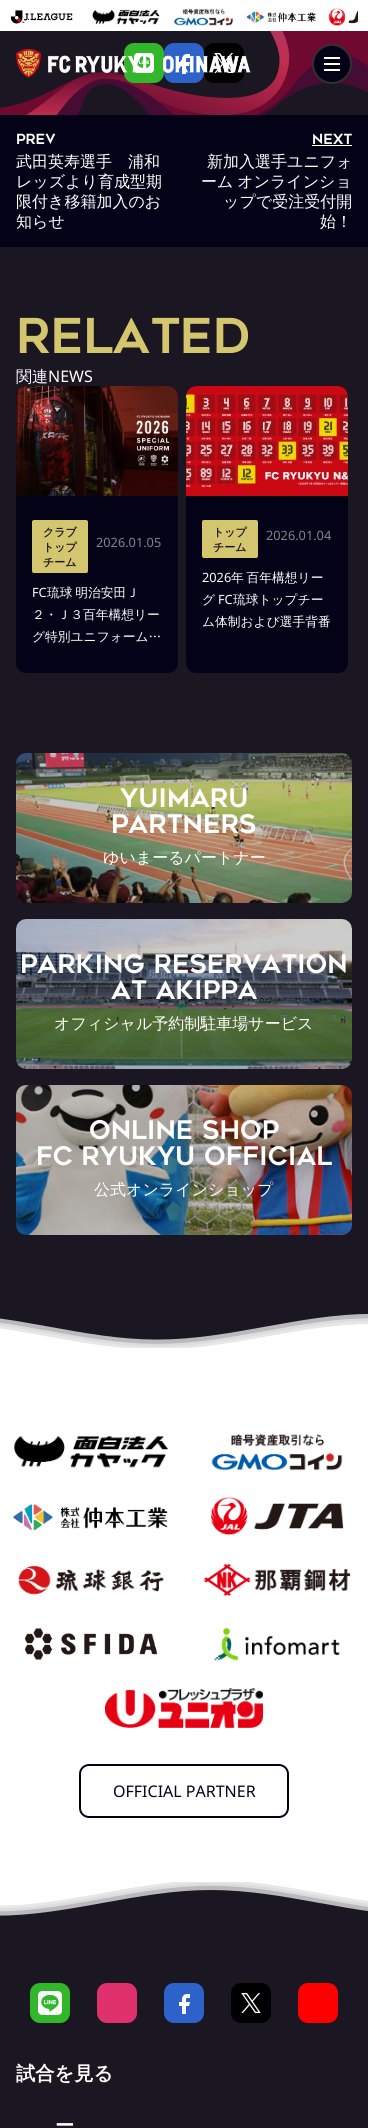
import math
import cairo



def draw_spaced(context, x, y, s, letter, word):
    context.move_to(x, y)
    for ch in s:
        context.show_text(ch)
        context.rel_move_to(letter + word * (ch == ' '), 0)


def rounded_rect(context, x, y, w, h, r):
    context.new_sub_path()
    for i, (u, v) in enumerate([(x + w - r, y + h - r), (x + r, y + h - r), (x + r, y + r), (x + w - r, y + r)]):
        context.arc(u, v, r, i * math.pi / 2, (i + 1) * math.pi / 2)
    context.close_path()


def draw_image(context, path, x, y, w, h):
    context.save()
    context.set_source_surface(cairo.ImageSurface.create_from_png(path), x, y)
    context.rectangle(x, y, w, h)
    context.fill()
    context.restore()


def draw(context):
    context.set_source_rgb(26 / 255, 22 / 255, 34 / 255)
    context.paint()
    draw_image(context, "images/8.png", 56, 56, 312, 59)
    context.set_source_rgb(111 / 255, 9 / 255, 47 / 255)
    context.new_path()
    context.move_to(0, 108)
    context.curve_to(0, 108, 16, 106, 33, 99)
    context.curve_to(53, 91, 66, 82, 81, 77)
    context.curve_to(81, 77, 65, 99, 46, 112)
    context.curve_to(27, 125, 24, 121, 0, 132)
    context.close_path()
    context.fill()
    draw_image(context, "images/7.png", 26, 31, 264, 84)
    context.new_path()
    context.move_to(368, -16)
    context.curve_to(350, -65, 287, -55, 275, -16)
    context.curve_to(263, 23, 303, 36, 284, 81)
    context.curve_to(259, 134, 177, 113, 157, 99)
    context.curve_to(175, 119, 189, 123, 207, 125)
    context.curve_to(240, 130, 278, 106, 292, 87)
    context.curve_to(316, 53, 349, 47, 368, 67)
    context.close_path()
    context.fill()
    context.set_source_rgb(1, 1, 1)
    context.rectangle(0, 0, 368, 31)
    context.fill()
    draw_image(context, "images/1.png", 10, 10, 63, 14)
    draw_image(context, "images/2.png", 92, 9, 68, 16)
    draw_image(context, "images/3.png", 174, 8, 59, 18)
    draw_image(context, "images/4.png", 246, 11, 70, 12)
    draw_image(context, "images/5.png", 328, 8, 30, 18)
    context.set_source_rgb(50 / 255, 183 / 255, 42 / 255)
    rounded_rect(context, 124, 43, 40, 40, 10)
    context.fill()
    draw_image(context, "images/9.png", 134, 53, 20, 20)
    context.set_source_rgb(44 / 255, 98 / 255, 201 / 255)
    rounded_rect(context, 164, 43, 40, 40, 10)
    context.fill()
    draw_image(context, "images/10.png", 179, 54, 11, 20)
    context.set_source_rgb(0, 0, 0)
    rounded_rect(context, 204, 43, 40, 40, 10)
    context.fill()
    draw_image(context, "images/11.png", 214, 53, 20, 20)
    draw_image(context, "images/6.png", 16, 49, 235, 29)
    context.set_source_rgb(4 / 255, 2 / 255, 23 / 255)
    context.arc(332, 64, 19, 0, 2 * math.pi)
    context.fill_preserve()
    context.set_source_rgb(48 / 255, 48 / 255, 48 / 255)
    context.stroke()
    context.set_source_rgb(1, 1, 1)
    context.rectangle(324, 57, 16, 2)
    context.fill()
    context.rectangle(324, 63, 16, 2)
    context.fill()
    context.rectangle(324, 69, 16, 2)
    context.fill()
    context.set_source_rgb(4 / 255, 2 / 255, 23 / 255)
    context.rectangle(0, 115, 368, 132)
    context.fill()
    context.set_source_rgb(1, 1, 1)
    context.rectangle(312, 145, 40, 1)
    context.fill()
    context.set_source_rgb(4 / 255, 2 / 255, 23 / 255)
    rounded_rect(context, 16, 386, 162, 287, 10)
    context.fill()
    draw_image(context, "images/12.png", 16, 386, 162, 110)
    context.set_source_rgb(211 / 255, 198 / 255, 111 / 255)
    rounded_rect(context, 32, 520, 56, 53, 2)
    context.fill()
    context.set_source_rgb(4 / 255, 2 / 255, 23 / 255)
    rounded_rect(context, 186, 386, 162, 287, 10)
    context.fill()
    draw_image(context, "images/13.png", 186, 386, 162, 110)
    context.set_source_rgb(211 / 255, 198 / 255, 111 / 255)
    rounded_rect(context, 202, 520, 56, 38, 2)
    context.fill()
    draw_image(context, "images/14.png", 16, 753, 336, 150)
    draw_image(context, "images/15.png", 16, 919, 336, 150)
    draw_image(context, "images/16.png", 16, 1085, 336, 150)
    draw_image(context, "images/17.png", 0, 1313, 368, 35)
    context.set_source_rgb(1, 1, 1)
    context.rectangle(0, 1348, 368, 534)
    context.fill()
    draw_image(context, "images/18.png", 14, 1435, 154, 33)
    draw_image(context, "images/19.png", 211, 1433, 132, 38)
    draw_image(context, "images/20.png", 13, 1504, 155, 27)
    draw_image(context, "images/21.png", 211, 1497, 133, 38)
    draw_image(context, "images/22.png", 18, 1565, 146, 30)
    draw_image(context, "images/23.png", 204, 1563, 147, 33)
    draw_image(context, "images/24.png", 24, 1628, 134, 32)
    draw_image(context, "images/25.png", 214, 1627, 126, 34)
    draw_image(context, "images/26.png", 105, 1688, 158, 40)
    rounded_rect(context, 80, 1765, 208, 52, 9)
    context.set_source_rgb(4 / 255, 2 / 255, 23 / 255)
    context.stroke()
    draw_image(context, "images/27.png", 0, 1882, 368, 34)
    context.set_source_rgb(50 / 255, 183 / 255, 42 / 255)
    rounded_rect(context, 30, 1983, 40, 40, 10)
    context.fill()
    draw_image(context, "images/28.png", 38, 1991, 24, 24)
    context.set_source_rgb(224 / 255, 49 / 255, 109 / 255)
    rounded_rect(context, 97, 1983, 40, 40, 10)
    context.fill()
    context.set_source_rgb(44 / 255, 98 / 255, 201 / 255)
    rounded_rect(context, 164, 1983, 40, 40, 10)
    context.fill()
    draw_image(context, "images/10.png", 179, 1994, 11, 20)
    context.set_source_rgb(0, 0, 0)
    rounded_rect(context, 231, 1983, 40, 40, 10)
    context.fill()
    draw_image(context, "images/11.png", 241, 1993, 20, 20)
    context.set_source_rgb(1, 0, 0)
    rounded_rect(context, 298, 1983, 40, 40, 10)
    context.fill()
    context.select_font_face("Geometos")
    context.set_font_size(14)
    context.set_source_rgb(1, 1, 1)
    context.move_to(16, 144)
    context.show_text("PREV")
    context.select_font_face("WenQuanYi Zen Hei Medium")
    context.set_font_size(16)
    context.move_to(16, 167)
    context.show_text("武田英寿選手　浦和")
    context.move_to(16, 187)
    context.show_text("レッズより育成型期")
    context.move_to(16, 207)
    context.show_text("限付き移籍加入のお")
    context.move_to(16, 227)
    context.show_text("知らせ")
    context.select_font_face("Geometos")
    context.set_font_size(14)
    context.move_to(312, 144)
    context.show_text("NEXT")
    context.select_font_face("WenQuanYi Zen Hei Medium")
    context.set_font_size(16)
    context.move_to(207, 167)
    context.show_text("新加入選手ユニフォ")
    draw_spaced(context, 201, 187, "ーム オンラインショ", 0, -1)
    context.move_to(223, 207)
    context.show_text("ップで受注受付開")
    context.move_to(320, 227)
    context.show_text("始！")
    context.select_font_face("Geometos")
    context.set_font_size(48)
    context.set_source_rgb(211 / 255, 198 / 255, 111 / 255)
    context.move_to(16, 353)
    context.show_text("RELATED")
    context.select_font_face("WenQuanYi Zen Hei Medium")
    context.set_font_size(16)
    context.set_source_rgb(1, 1, 1)
    context.move_to(16, 382)
    context.show_text("関連")
    context.select_font_face("Noto Sans")
    context.move_to(48, 382)
    context.show_text("NEWS")
    context.select_font_face("WenQuanYi Zen Hei", cairo.FontSlant.NORMAL, cairo.FontWeight.BOLD)
    context.set_font_size(11)
    context.set_source_rgb(27 / 255, 22 / 255, 35 / 255)
    context.move_to(43, 536)
    context.show_text("クラブ")
    context.move_to(43, 551)
    context.show_text("トップ")
    context.move_to(43, 566)
    context.show_text("チーム")
    context.select_font_face("Noto Sans")
    context.set_font_size(12.75)
    context.set_source_rgb(130 / 255, 129 / 255, 139 / 255)
    context.move_to(96, 547)
    context.show_text("2026.01.05")
    context.set_source_rgb(1, 1, 1)
    context.move_to(32, 597)
    context.show_text("FC")
    context.select_font_face("WenQuanYi Zen Hei Medium")
    draw_spaced(context, 47, 597, "琉球 明治安田Ｊ", 0, -1)
    context.move_to(32, 619)
    context.show_text("２・Ｊ３百年構想リー")
    context.move_to(32, 641)
    context.show_text("グ特別ユニフォーム…")
    context.select_font_face("WenQuanYi Zen Hei", cairo.FontSlant.NORMAL, cairo.FontWeight.BOLD)
    context.set_font_size(11)
    context.set_source_rgb(27 / 255, 22 / 255, 35 / 255)
    context.move_to(213, 536)
    context.show_text("トップ")
    context.move_to(213, 551)
    context.show_text("チーム")
    context.select_font_face("Noto Sans")
    context.set_font_size(12.75)
    context.set_source_rgb(130 / 255, 129 / 255, 139 / 255)
    context.move_to(266, 540)
    context.show_text("2026.01.04")
    context.set_source_rgb(1, 1, 1)
    context.move_to(202, 582)
    context.show_text("2026")
    context.select_font_face("WenQuanYi Zen Hei Medium")
    draw_spaced(context, 231, 582, "年 百年構想リー", 0, -1)
    context.move_to(202, 604)
    context.show_text("グ")
    context.select_font_face("Noto Sans")
    context.move_to(218, 604)
    context.show_text("FC")
    context.select_font_face("WenQuanYi Zen Hei Medium")
    context.move_to(233, 604)
    context.show_text("琉球トップチー")
    context.move_to(202, 626)
    context.show_text("ム体制および選手背番")
    context.select_font_face("Geometos")
    context.set_font_size(25.6)
    context.move_to(120, 807)
    context.show_text("YUIMARU")
    context.move_to(111, 833)
    context.show_text("Partners")
    context.select_font_face("WenQuanYi Zen Hei Medium")
    context.set_font_size(16)
    context.move_to(103, 863)
    context.show_text("ゆいまーるパートナー")
    context.select_font_face("Geometos")
    context.set_font_size(25.6)
    context.move_to(20, 973)
    context.show_text("PARKING RESERVATION")
    context.move_to(111, 999)
    context.show_text("AT Akippa")
    context.select_font_face("WenQuanYi Zen Hei Medium")
    context.set_font_size(16)
    context.move_to(54, 1029)
    context.show_text("オフィシャル予約制駐車場サービス")
    context.select_font_face("Geometos")
    context.set_font_size(25.6)
    context.move_to(89, 1139)
    context.show_text("ONLINE SHOP")
    context.move_to(36, 1165)
    context.show_text("FC RYUKYU OFFICIAL")
    context.select_font_face("WenQuanYi Zen Hei Medium")
    context.set_font_size(16)
    context.move_to(94, 1195)
    context.show_text("公式オンラインショップ")
    context.select_font_face("Noto Sans")
    context.set_source_rgb(4 / 255, 2 / 255, 23 / 255)
    context.move_to(113, 1797)
    context.show_text("OFFICIAL PARTNER")
    context.select_font_face("WenQuanYi Zen Hei", cairo.FontSlant.NORMAL, cairo.FontWeight.BOLD)
    context.set_font_size(19.25)
    context.set_source_rgb(1, 1, 1)
    context.move_to(16, 2080)
    context.show_text("試合を見る")
    context.move_to(55, 2132)
    context.show_text("ー")


surface = cairo.ImageSurface(cairo.Format.RGB24, 368, 2128)
context = cairo.Context(surface)
options = cairo.FontOptions()
options.set_hint_metrics(cairo.HintMetrics.OFF)
options.set_hint_style(cairo.HintStyle.NONE)
context.set_font_options(options)
context.set_miter_limit(4)
draw(context)
surface.write_to_png("out.png")
